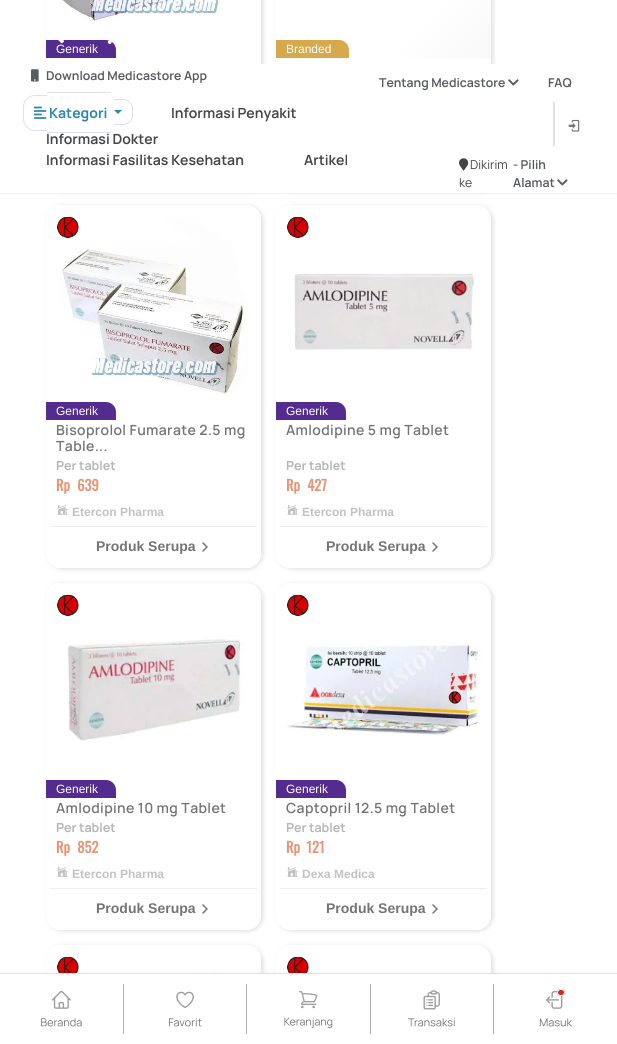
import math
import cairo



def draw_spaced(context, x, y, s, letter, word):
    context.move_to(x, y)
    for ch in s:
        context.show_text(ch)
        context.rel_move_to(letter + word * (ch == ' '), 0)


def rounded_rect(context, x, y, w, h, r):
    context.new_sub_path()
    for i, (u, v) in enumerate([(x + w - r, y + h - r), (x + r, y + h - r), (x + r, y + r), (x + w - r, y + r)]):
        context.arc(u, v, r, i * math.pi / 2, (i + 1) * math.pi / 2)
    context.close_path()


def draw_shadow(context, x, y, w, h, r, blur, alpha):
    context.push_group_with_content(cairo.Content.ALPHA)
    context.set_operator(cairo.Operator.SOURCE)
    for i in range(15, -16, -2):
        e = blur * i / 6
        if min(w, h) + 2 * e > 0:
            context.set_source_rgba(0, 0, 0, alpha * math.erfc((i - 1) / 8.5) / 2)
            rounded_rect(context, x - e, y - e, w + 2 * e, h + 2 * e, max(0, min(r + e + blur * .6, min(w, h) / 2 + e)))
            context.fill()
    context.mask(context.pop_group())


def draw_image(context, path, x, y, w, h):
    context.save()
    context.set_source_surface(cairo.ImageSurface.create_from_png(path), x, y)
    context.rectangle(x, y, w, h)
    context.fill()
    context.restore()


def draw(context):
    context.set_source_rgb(1, 1, 1)
    context.paint()
    context.save()
    context.set_fill_rule(cairo.FillRule.EVEN_ODD)
    context.new_path()
    context.move_to(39, 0)
    context.line_to(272, 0)
    context.line_to(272, 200)
    context.line_to(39, 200)
    context.close_path()
    context.move_to(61, -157)
    context.line_to(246, -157)
    context.curve_to(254.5, -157, 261, -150.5, 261, -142)
    context.line_to(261, 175)
    context.curve_to(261, 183.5, 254.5, 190, 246, 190)
    context.line_to(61, 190)
    context.curve_to(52.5, 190, 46, 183.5, 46, 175)
    context.line_to(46, -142)
    context.curve_to(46, -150.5, 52.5, -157, 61, -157)
    context.close_path()
    context.clip()
    context.set_source_rgb(128 / 255, 128 / 255, 128 / 255)
    draw_shadow(context, 48, -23, 215, 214, 15, 2.5, 0.27)
    context.restore()
    draw_image(context, "images/1.png", 62, 0, 157, 23)
    context.set_source_rgb(84 / 255, 44 / 255, 143 / 255)
    context.new_path()
    context.move_to(46, 40)
    context.line_to(106, 40)
    context.curve_to(111.5, 40, 116, 44.5, 116, 50)
    context.line_to(116, 58)
    context.line_to(46, 58)
    context.close_path()
    context.fill()
    context.set_source_rgb(128 / 255, 128 / 255, 128 / 255)
    draw_shadow(context, 278, -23, 215, 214, 15, 2.5, 0.27)
    gradient = cairo.LinearGradient(276, -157, 491, 58)
    gradient.add_color_stop_rgba(0, 1, 1, 1, 1)
    gradient.add_color_stop_rgba(0.75, 1, 1, 1, 1)
    gradient.add_color_stop_rgba(0.98, 249 / 255, 249 / 255, 249 / 255, 1)
    gradient.add_color_stop_rgba(1, 249 / 255, 249 / 255, 249 / 255, 1)
    context.set_source(gradient)
    context.rectangle(276, 0, 215, 58)
    context.fill()
    context.set_source_rgb(213 / 255, 169 / 255, 76 / 255)
    context.new_path()
    context.move_to(276, 40)
    context.line_to(339, 40)
    context.curve_to(344.5, 40, 349, 44.5, 349, 50)
    context.line_to(349, 58)
    context.line_to(276, 58)
    context.close_path()
    context.fill()
    context.set_source_rgb(1, 1, 1)
    context.rectangle(276, 58, 215, 6)
    context.fill()
    context.save()
    context.set_fill_rule(cairo.FillRule.EVEN_ODD)
    context.new_path()
    context.move_to(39, 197)
    context.line_to(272, 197)
    context.line_to(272, 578)
    context.line_to(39, 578)
    context.close_path()
    context.move_to(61, 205)
    context.line_to(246, 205)
    context.curve_to(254.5, 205, 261, 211.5, 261, 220)
    context.line_to(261, 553)
    context.curve_to(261, 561.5, 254.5, 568, 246, 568)
    context.line_to(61, 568)
    context.curve_to(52.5, 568, 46, 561.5, 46, 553)
    context.line_to(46, 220)
    context.curve_to(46, 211.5, 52.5, 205, 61, 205)
    context.close_path()
    context.clip()
    context.set_source_rgb(128 / 255, 128 / 255, 128 / 255)
    draw_shadow(context, 48, 206, 215, 363, 15, 2.5, 0.27)
    context.restore()
    draw_image(context, "images/3.png", 60, 207, 201, 187)
    draw_image(context, "images/2.png", 57, 217, 22, 21)
    context.set_source_rgb(84 / 255, 44 / 255, 143 / 255)
    context.new_path()
    context.move_to(46, 402)
    context.line_to(106, 402)
    context.curve_to(111.5, 402, 116, 406.5, 116, 412)
    context.line_to(116, 420)
    context.line_to(46, 420)
    context.close_path()
    context.fill()
    context.set_source_rgb(1, 1, 1)
    context.new_path()
    context.move_to(46, 420)
    context.line_to(261, 420)
    context.line_to(261, 553)
    context.curve_to(261, 561.5, 254.5, 568, 246, 568)
    context.line_to(61, 568)
    context.curve_to(52.5, 568, 46, 561.5, 46, 553)
    context.close_path()
    context.fill()
    context.set_source_rgb(238 / 255, 238 / 255, 238 / 255)
    context.rectangle(50, 526, 207, 1)
    context.fill()
    draw_image(context, "images/4.png", 57, 505, 11, 10)
    context.save()
    rounded_rect(context, 46, 205, 215, 363, 15)
    context.clip()
    context.set_source_rgb(1, 1, 1)
    context.rectangle(46, 535, 215, 23)
    context.fill()
    context.restore()
    context.new_path()
    context.move_to(203, 543)
    context.line_to(207, 547)
    context.line_to(203, 551)
    context.set_source_rgb(117 / 255, 117 / 255, 117 / 255)
    context.set_line_width(1.5)
    context.set_line_cap(cairo.LineCap.ROUND)
    context.set_line_join(cairo.LineJoin.ROUND)
    context.stroke()
    context.save()
    context.set_fill_rule(cairo.FillRule.EVEN_ODD)
    context.new_path()
    context.move_to(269, 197)
    context.line_to(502, 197)
    context.line_to(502, 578)
    context.line_to(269, 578)
    context.close_path()
    context.move_to(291, 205)
    context.line_to(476, 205)
    context.curve_to(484.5, 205, 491, 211.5, 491, 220)
    context.line_to(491, 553)
    context.curve_to(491, 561.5, 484.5, 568, 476, 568)
    context.line_to(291, 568)
    context.curve_to(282.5, 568, 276, 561.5, 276, 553)
    context.line_to(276, 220)
    context.curve_to(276, 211.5, 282.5, 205, 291, 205)
    context.close_path()
    context.clip()
    context.set_source_rgb(128 / 255, 128 / 255, 128 / 255)
    draw_shadow(context, 278, 206, 215, 363, 15, 2.5, 0.27)
    context.restore()
    draw_image(context, "images/6.png", 294, 206, 197, 144)
    draw_image(context, "images/5.png", 287, 217, 22, 21)
    context.set_source_rgb(84 / 255, 44 / 255, 143 / 255)
    context.new_path()
    context.move_to(276, 402)
    context.line_to(336, 402)
    context.curve_to(341.5, 402, 346, 406.5, 346, 412)
    context.line_to(346, 420)
    context.line_to(276, 420)
    context.close_path()
    context.fill()
    context.set_source_rgb(1, 1, 1)
    context.new_path()
    context.move_to(276, 420)
    context.line_to(491, 420)
    context.line_to(491, 553)
    context.curve_to(491, 561.5, 484.5, 568, 476, 568)
    context.line_to(291, 568)
    context.curve_to(282.5, 568, 276, 561.5, 276, 553)
    context.close_path()
    context.fill()
    context.set_source_rgb(238 / 255, 238 / 255, 238 / 255)
    context.rectangle(280, 526, 207, 1)
    context.fill()
    draw_image(context, "images/4.png", 287, 505, 11, 10)
    context.save()
    rounded_rect(context, 276, 205, 215, 363, 15)
    context.clip()
    context.set_source_rgb(1, 1, 1)
    context.rectangle(276, 535, 215, 23)
    context.fill()
    context.restore()
    context.new_path()
    context.move_to(433, 543)
    context.line_to(437, 547)
    context.line_to(433, 551)
    context.set_source_rgb(117 / 255, 117 / 255, 117 / 255)
    context.stroke()
    context.save()
    context.set_fill_rule(cairo.FillRule.EVEN_ODD)
    context.new_path()
    context.move_to(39, 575)
    context.line_to(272, 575)
    context.line_to(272, 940)
    context.line_to(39, 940)
    context.close_path()
    context.move_to(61, 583)
    context.line_to(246, 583)
    context.curve_to(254.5, 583, 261, 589.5, 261, 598)
    context.line_to(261, 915)
    context.curve_to(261, 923.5, 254.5, 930, 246, 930)
    context.line_to(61, 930)
    context.curve_to(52.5, 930, 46, 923.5, 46, 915)
    context.line_to(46, 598)
    context.curve_to(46, 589.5, 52.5, 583, 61, 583)
    context.close_path()
    context.clip()
    context.set_source_rgb(128 / 255, 128 / 255, 128 / 255)
    draw_shadow(context, 48, 584, 215, 347, 15, 2.5, 0.27)
    context.restore()
    draw_image(context, "images/8.png", 67, 585, 194, 156)
    draw_image(context, "images/7.png", 57, 595, 22, 21)
    context.set_source_rgb(84 / 255, 44 / 255, 143 / 255)
    context.new_path()
    context.move_to(46, 780)
    context.line_to(106, 780)
    context.curve_to(111.5, 780, 116, 784.5, 116, 790)
    context.line_to(116, 798)
    context.line_to(46, 798)
    context.close_path()
    context.fill()
    context.set_source_rgb(1, 1, 1)
    context.new_path()
    context.move_to(46, 798)
    context.line_to(261, 798)
    context.line_to(261, 915)
    context.curve_to(261, 923.5, 254.5, 930, 246, 930)
    context.line_to(61, 930)
    context.curve_to(52.5, 930, 46, 923.5, 46, 915)
    context.close_path()
    context.fill()
    context.set_source_rgb(238 / 255, 238 / 255, 238 / 255)
    context.rectangle(50, 888, 207, 1)
    context.fill()
    draw_image(context, "images/4.png", 57, 867, 11, 10)
    context.save()
    rounded_rect(context, 46, 583, 215, 347, 15)
    context.clip()
    context.set_source_rgb(1, 1, 1)
    context.rectangle(46, 897, 215, 23)
    context.fill()
    context.restore()
    context.new_path()
    context.move_to(203, 905)
    context.line_to(207, 909)
    context.line_to(203, 913)
    context.set_source_rgb(117 / 255, 117 / 255, 117 / 255)
    context.stroke()
    context.save()
    context.set_fill_rule(cairo.FillRule.EVEN_ODD)
    context.new_path()
    context.move_to(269, 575)
    context.line_to(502, 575)
    context.line_to(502, 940)
    context.line_to(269, 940)
    context.close_path()
    context.move_to(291, 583)
    context.line_to(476, 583)
    context.curve_to(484.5, 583, 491, 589.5, 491, 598)
    context.line_to(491, 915)
    context.curve_to(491, 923.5, 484.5, 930, 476, 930)
    context.line_to(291, 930)
    context.curve_to(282.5, 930, 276, 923.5, 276, 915)
    context.line_to(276, 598)
    context.curve_to(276, 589.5, 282.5, 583, 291, 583)
    context.close_path()
    context.clip()
    context.set_source_rgb(128 / 255, 128 / 255, 128 / 255)
    draw_shadow(context, 278, 584, 215, 347, 15, 2.5, 0.27)
    context.restore()
    draw_image(context, "images/10.png", 286, 584, 205, 152)
    draw_image(context, "images/9.png", 287, 595, 22, 21)
    context.set_source_rgb(84 / 255, 44 / 255, 143 / 255)
    context.new_path()
    context.move_to(276, 780)
    context.line_to(336, 780)
    context.curve_to(341.5, 780, 346, 784.5, 346, 790)
    context.line_to(346, 798)
    context.line_to(276, 798)
    context.close_path()
    context.fill()
    context.set_source_rgb(1, 1, 1)
    context.new_path()
    context.move_to(276, 798)
    context.line_to(491, 798)
    context.line_to(491, 915)
    context.curve_to(491, 923.5, 484.5, 930, 476, 930)
    context.line_to(291, 930)
    context.curve_to(282.5, 930, 276, 923.5, 276, 915)
    context.close_path()
    context.fill()
    context.set_source_rgb(238 / 255, 238 / 255, 238 / 255)
    context.rectangle(280, 888, 207, 1)
    context.fill()
    draw_image(context, "images/4.png", 287, 867, 11, 10)
    context.save()
    rounded_rect(context, 276, 583, 215, 347, 15)
    context.clip()
    context.set_source_rgb(1, 1, 1)
    context.rectangle(276, 897, 215, 23)
    context.fill()
    context.restore()
    context.new_path()
    context.move_to(433, 905)
    context.line_to(437, 909)
    context.line_to(433, 913)
    context.set_source_rgb(117 / 255, 117 / 255, 117 / 255)
    context.stroke()
    context.save()
    context.set_fill_rule(cairo.FillRule.EVEN_ODD)
    context.new_path()
    context.move_to(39, 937)
    context.line_to(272, 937)
    context.line_to(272, 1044)
    context.line_to(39, 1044)
    context.close_path()
    context.move_to(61, 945)
    context.line_to(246, 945)
    context.curve_to(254.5, 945, 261, 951.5, 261, 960)
    context.line_to(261, 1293)
    context.curve_to(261, 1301.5, 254.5, 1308, 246, 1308)
    context.line_to(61, 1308)
    context.curve_to(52.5, 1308, 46, 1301.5, 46, 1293)
    context.line_to(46, 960)
    context.curve_to(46, 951.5, 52.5, 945, 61, 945)
    context.close_path()
    context.clip()
    context.set_source_rgb(128 / 255, 128 / 255, 128 / 255)
    draw_shadow(context, 48, 946, 215, 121, 15, 2.5, 0.27)
    context.restore()
    draw_image(context, "images/11.png", 49, 947, 212, 26)
    draw_image(context, "images/12.png", 57, 957, 22, 16)
    context.save()
    context.set_fill_rule(cairo.FillRule.EVEN_ODD)
    context.new_path()
    context.move_to(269, 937)
    context.line_to(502, 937)
    context.line_to(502, 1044)
    context.line_to(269, 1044)
    context.close_path()
    context.move_to(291, 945)
    context.line_to(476, 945)
    context.curve_to(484.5, 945, 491, 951.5, 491, 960)
    context.line_to(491, 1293)
    context.curve_to(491, 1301.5, 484.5, 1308, 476, 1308)
    context.line_to(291, 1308)
    context.curve_to(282.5, 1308, 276, 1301.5, 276, 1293)
    context.line_to(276, 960)
    context.curve_to(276, 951.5, 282.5, 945, 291, 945)
    context.close_path()
    context.clip()
    context.set_source_rgb(128 / 255, 128 / 255, 128 / 255)
    draw_shadow(context, 278, 946, 215, 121, 15, 2.5, 0.27)
    context.restore()
    draw_image(context, "images/13.png", 287, 957, 22, 16)
    draw_image(context, "images/14.png", 58, 40, 6, 4)
    draw_image(context, "images/15.png", 107, 40, 5, 4)
    context.set_source_rgb(1, 1, 1)
    context.rectangle(44, 64, 453, 38)
    context.fill()
    draw_image(context, "images/16.png", 31, 69, 8, 13)
    draw_image(context, "images/17.png", 508, 79, 11, 7)
    context.set_source_rgb(33 / 255, 37 / 255, 41 / 255)
    draw_shadow(context, 0, 103, 617, 91, 0, 1, 0.07)
    context.set_source_rgb(1, 1, 1)
    context.rectangle(0, 102, 617, 91)
    context.fill()
    context.set_source_rgb(222 / 255, 226 / 255, 230 / 255)
    context.set_fill_rule(cairo.FillRule.EVEN_ODD)
    context.new_path()
    context.move_to(35, 95)
    context.line_to(47, 95)
    context.line_to(47, 131)
    context.line_to(35, 131)
    context.curve_to(28.5, 131, 23, 125.5, 23, 119)
    context.line_to(23, 107)
    context.curve_to(23, 100.5, 28.5, 95, 35, 95)
    context.close_path()
    context.move_to(35, 96)
    context.line_to(47, 96)
    context.line_to(47, 130)
    context.line_to(35, 130)
    context.curve_to(29, 130, 24, 125, 24, 119)
    context.line_to(24, 107)
    context.curve_to(24, 101, 29, 96, 35, 96)
    context.close_path()
    context.fill()
    context.rectangle(47, 92, 64, 1)
    context.fill()
    context.rectangle(47, 132, 64, 1)
    context.fill()
    context.new_path()
    context.move_to(114, 99)
    context.line_to(123.5, 99)
    context.curve_to(128.5, 99, 133, 103.5, 133, 108.5)
    context.line_to(133, 115.5)
    context.curve_to(133, 120.5, 128.5, 125, 123.5, 125)
    context.line_to(114, 125)
    context.close_path()
    context.move_to(114, 100)
    context.line_to(123.5, 100)
    context.curve_to(128, 100, 132, 104, 132, 108.5)
    context.line_to(132, 115.5)
    context.curve_to(132, 120, 128, 124, 123.5, 124)
    context.line_to(114, 124)
    context.close_path()
    context.fill()
    draw_image(context, "images/18.png", 34, 106, 13, 13)
    context.set_source_rgb(42 / 255, 135 / 255, 175 / 255)
    context.set_fill_rule(cairo.FillRule.WINDING)
    context.new_path()
    context.move_to(114, 110)
    context.line_to(122, 110)
    context.line_to(118, 114)
    context.close_path()
    context.fill()
    context.set_source_rgb(222 / 255, 226 / 255, 230 / 255)
    context.rectangle(553, 102, 2, 44)
    context.fill()
    draw_image(context, "images/19.png", 568, 119, 12, 13)
    draw_image(context, "images/20.png", 459, 158, 10, 13)
    draw_image(context, "images/17.png", 557, 179, 11, 7)
    context.set_source_rgb(33 / 255, 37 / 255, 41 / 255)
    draw_shadow(context, 0, 978, 617, 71, 0, 5, 0.15)
    context.set_source_rgb(1, 1, 1)
    context.rectangle(0, 974, 617, 70)
    context.fill()
    context.set_source_rgb(222 / 255, 226 / 255, 230 / 255)
    context.rectangle(0, 973, 617, 1)
    context.fill()
    context.set_source_rgb(176 / 255, 176 / 255, 176 / 255)
    context.rectangle(123, 984, 371, 50)
    context.fill()
    draw_image(context, "images/21.png", 41, 990, 41, 37)
    context.set_source_rgb(1, 1, 1)
    context.rectangle(124, 984, 122, 50)
    context.fill()
    draw_image(context, "images/22.png", 169, 991, 33, 36)
    context.rectangle(247, 984, 123, 50)
    context.fill()
    draw_image(context, "images/23.png", 284, 991, 49, 38)
    context.rectangle(371, 984, 122, 50)
    context.fill()
    draw_image(context, "images/24.png", 408, 990, 47, 37)
    draw_image(context, "images/25.png", 539, 989, 33, 38)
    context.select_font_face("Liberation Sans")
    context.set_font_size(12)
    context.move_to(56, 53)
    context.show_text("Generik")
    context.move_to(286, 53)
    context.show_text("Branded")
    context.move_to(56, 415)
    context.show_text("Generik")
    context.select_font_face("Manrope SemiBold")
    context.set_font_size(14)
    context.set_source_rgb(115 / 255, 116 / 255, 116 / 255)
    draw_spaced(context, 56, 435, "Bisoprolol Fumarate 2.5 mg", 0.35, 0)
    draw_spaced(context, 56, 451, "Table...", 0.35, 0)
    context.select_font_face("Manrope", cairo.FontSlant.NORMAL, cairo.FontWeight.BOLD)
    context.set_font_size(12.5)
    context.set_source_rgb(182 / 255, 182 / 255, 182 / 255)
    context.move_to(56, 470)
    context.show_text("Per tablet")
    context.select_font_face("Oswald", cairo.FontSlant.NORMAL, cairo.FontWeight.BOLD)
    context.set_font_size(14.5)
    context.set_source_rgb(230 / 255, 149 / 255, 119 / 255)
    draw_spaced(context, 56, 491, "Rp 639", 0, 4)
    context.select_font_face("Liberation Sans", cairo.FontSlant.NORMAL, cairo.FontWeight.BOLD)
    context.set_font_size(12)
    context.set_source_rgb(194 / 255, 194 / 255, 194 / 255)
    context.move_to(72, 516)
    context.show_text("Etercon Pharma")
    context.set_font_size(14)
    context.set_source_rgb(115 / 255, 116 / 255, 116 / 255)
    context.move_to(96, 551)
    context.show_text("Produk Serupa")
    context.select_font_face("Liberation Sans")
    context.set_font_size(12)
    context.set_source_rgb(1, 1, 1)
    context.move_to(286, 415)
    context.show_text("Generik")
    context.select_font_face("Manrope SemiBold")
    context.set_font_size(14)
    context.set_source_rgb(115 / 255, 116 / 255, 116 / 255)
    draw_spaced(context, 286, 435, "Amlodipine 5 mg Tablet", 0.35, 0)
    context.select_font_face("Manrope", cairo.FontSlant.NORMAL, cairo.FontWeight.BOLD)
    context.set_font_size(12.5)
    context.set_source_rgb(182 / 255, 182 / 255, 182 / 255)
    context.move_to(286, 470)
    context.show_text("Per tablet")
    context.select_font_face("Oswald", cairo.FontSlant.NORMAL, cairo.FontWeight.BOLD)
    context.set_font_size(14.5)
    context.set_source_rgb(230 / 255, 149 / 255, 119 / 255)
    draw_spaced(context, 286, 491, "Rp 427", 0, 4)
    context.select_font_face("Liberation Sans", cairo.FontSlant.NORMAL, cairo.FontWeight.BOLD)
    context.set_font_size(12)
    context.set_source_rgb(194 / 255, 194 / 255, 194 / 255)
    context.move_to(302, 516)
    context.show_text("Etercon Pharma")
    context.set_font_size(14)
    context.set_source_rgb(115 / 255, 116 / 255, 116 / 255)
    context.move_to(326, 551)
    context.show_text("Produk Serupa")
    context.select_font_face("Liberation Sans")
    context.set_font_size(12)
    context.set_source_rgb(1, 1, 1)
    context.move_to(56, 793)
    context.show_text("Generik")
    context.select_font_face("Manrope SemiBold")
    context.set_font_size(14)
    context.set_source_rgb(115 / 255, 116 / 255, 116 / 255)
    draw_spaced(context, 56, 813, "Amlodipine 10 mg Tablet", 0.35, 0)
    context.select_font_face("Manrope", cairo.FontSlant.NORMAL, cairo.FontWeight.BOLD)
    context.set_font_size(12.5)
    context.set_source_rgb(182 / 255, 182 / 255, 182 / 255)
    context.move_to(56, 832)
    context.show_text("Per tablet")
    context.select_font_face("Oswald", cairo.FontSlant.NORMAL, cairo.FontWeight.BOLD)
    context.set_font_size(14.5)
    context.set_source_rgb(230 / 255, 149 / 255, 119 / 255)
    draw_spaced(context, 56, 853, "Rp 852", 0, 4)
    context.select_font_face("Liberation Sans", cairo.FontSlant.NORMAL, cairo.FontWeight.BOLD)
    context.set_font_size(12)
    context.set_source_rgb(194 / 255, 194 / 255, 194 / 255)
    context.move_to(72, 878)
    context.show_text("Etercon Pharma")
    context.set_font_size(14)
    context.set_source_rgb(115 / 255, 116 / 255, 116 / 255)
    context.move_to(96, 913)
    context.show_text("Produk Serupa")
    context.select_font_face("Liberation Sans")
    context.set_font_size(12)
    context.set_source_rgb(1, 1, 1)
    context.move_to(286, 793)
    context.show_text("Generik")
    context.select_font_face("Manrope SemiBold")
    context.set_font_size(14)
    context.set_source_rgb(115 / 255, 116 / 255, 116 / 255)
    draw_spaced(context, 286, 813, "Captopril 12.5 mg Tablet", 0.35, 0)
    context.select_font_face("Manrope", cairo.FontSlant.NORMAL, cairo.FontWeight.BOLD)
    context.set_font_size(12.5)
    context.set_source_rgb(182 / 255, 182 / 255, 182 / 255)
    context.move_to(286, 832)
    context.show_text("Per tablet")
    context.select_font_face("Oswald", cairo.FontSlant.NORMAL, cairo.FontWeight.BOLD)
    context.set_font_size(14.5)
    context.set_source_rgb(230 / 255, 149 / 255, 119 / 255)
    draw_spaced(context, 286, 853, "Rp 121", 0, 3)
    context.select_font_face("Liberation Sans", cairo.FontSlant.NORMAL, cairo.FontWeight.BOLD)
    context.set_font_size(12)
    context.set_source_rgb(194 / 255, 194 / 255, 194 / 255)
    context.move_to(302, 878)
    context.show_text("Dexa Medica")
    context.set_font_size(14)
    context.set_source_rgb(115 / 255, 116 / 255, 116 / 255)
    context.move_to(326, 913)
    context.show_text("Produk Serupa")
    context.select_font_face("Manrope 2 SemiBold")
    context.set_font_size(12.25)
    context.set_source_rgb(89 / 255, 92 / 255, 95 / 255)
    context.move_to(46, 80)
    context.show_text("Download Medicastore App")
    context.move_to(379, 87)
    context.show_text("Tentang Medicastore")
    context.move_to(548, 87)
    context.show_text("FAQ")
    context.select_font_face("Manrope", cairo.FontSlant.NORMAL, cairo.FontWeight.BOLD)
    context.set_font_size(14)
    context.set_source_rgb(42 / 255, 135 / 255, 175 / 255)
    context.move_to(49, 118)
    context.show_text("Kategori")
    context.select_font_face("Manrope 2 SemiBold")
    context.set_source_rgb(68 / 255, 70 / 255, 69 / 255)
    context.move_to(171, 118)
    context.show_text("Informasi Penyakit")
    context.move_to(46, 144)
    context.show_text("Informasi Dokter")
    context.move_to(46, 165)
    context.show_text("Informasi Fasilitas Kesehatan")
    context.move_to(304, 165)
    context.show_text("Artikel")
    context.select_font_face("Manrope")
    context.set_font_size(12.25)
    context.move_to(470, 169)
    context.show_text("Dikirim")
    context.move_to(459, 187)
    context.show_text("ke")
    context.select_font_face("Manrope 2 SemiBold")
    context.set_source_rgb(89 / 255, 92 / 255, 95 / 255)
    context.move_to(513, 169)
    context.show_text("- Pilih")
    context.move_to(513, 187)
    context.show_text("Alamat")


surface = cairo.ImageSurface(cairo.Format.RGB24, 617, 1044)
context = cairo.Context(surface)
options = cairo.FontOptions()
options.set_hint_metrics(cairo.HintMetrics.OFF)
options.set_hint_style(cairo.HintStyle.NONE)
context.set_font_options(options)
context.set_miter_limit(4)
draw(context)
surface.write_to_png("out.png")
